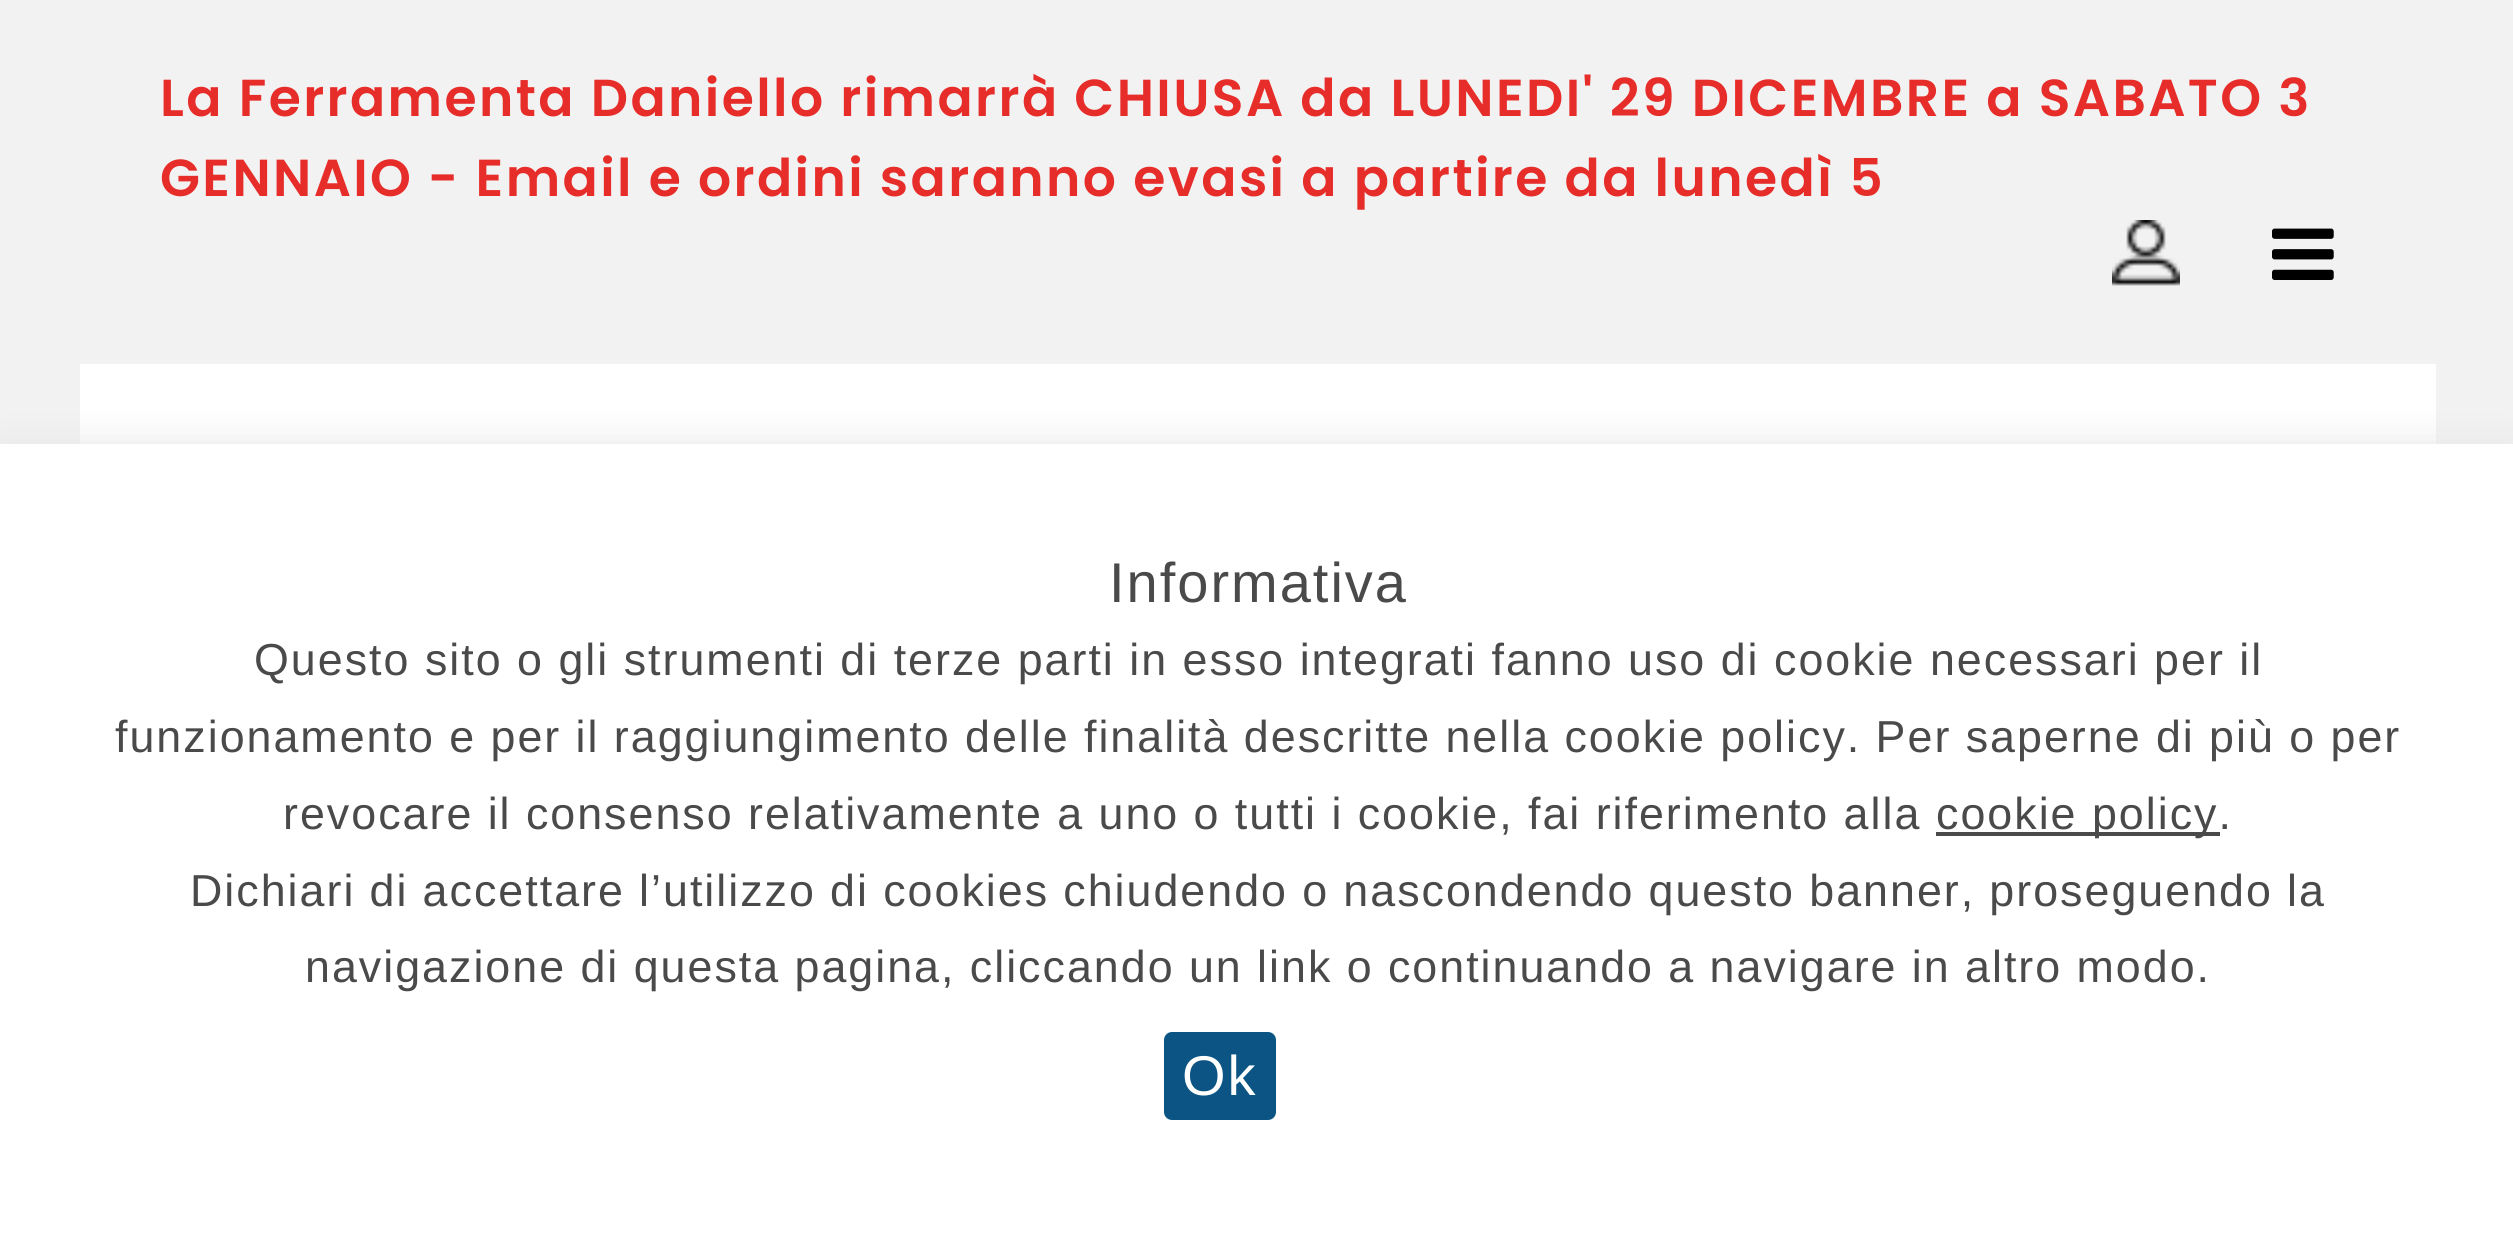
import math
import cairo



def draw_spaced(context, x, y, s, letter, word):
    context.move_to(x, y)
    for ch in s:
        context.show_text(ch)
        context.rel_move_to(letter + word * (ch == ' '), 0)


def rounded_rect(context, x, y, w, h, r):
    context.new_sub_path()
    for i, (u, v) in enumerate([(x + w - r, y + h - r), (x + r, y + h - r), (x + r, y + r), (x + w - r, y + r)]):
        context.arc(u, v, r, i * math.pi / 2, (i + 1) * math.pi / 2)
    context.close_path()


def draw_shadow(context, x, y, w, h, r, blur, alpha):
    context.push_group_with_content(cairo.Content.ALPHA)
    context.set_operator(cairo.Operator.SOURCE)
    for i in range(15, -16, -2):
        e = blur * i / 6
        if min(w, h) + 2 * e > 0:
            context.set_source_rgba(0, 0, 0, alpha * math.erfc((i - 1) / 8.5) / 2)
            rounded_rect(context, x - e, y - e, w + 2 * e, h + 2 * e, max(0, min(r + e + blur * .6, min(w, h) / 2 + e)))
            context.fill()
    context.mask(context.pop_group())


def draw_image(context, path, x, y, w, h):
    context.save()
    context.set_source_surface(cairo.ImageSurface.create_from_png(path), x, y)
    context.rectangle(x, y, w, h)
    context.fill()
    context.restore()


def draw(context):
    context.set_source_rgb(242 / 255, 242 / 255, 242 / 255)
    context.paint()
    context.set_source_rgb(1, 1, 1)
    context.rectangle(80, 364, 2356, 80)
    context.fill()
    draw_image(context, "images/1.png", 2112, 220, 68, 66)
    draw_image(context, "images/2.png", 2272, 228, 62, 52)
    context.set_source_rgb(230 / 255, 230 / 255, 230 / 255)
    draw_shadow(context, 0, 444, 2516, 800, 0, 20, 1)
    context.set_source_rgb(1, 1, 1)
    context.rectangle(0, 444, 2513, 799)
    context.fill()
    context.set_source_rgb(74 / 255, 74 / 255, 74 / 255)
    context.rectangle(1936, 832, 284, 4)
    context.fill()
    context.set_source_rgb(11 / 255, 84 / 255, 131 / 255)
    rounded_rect(context, 1164, 1032, 112, 88, 8)
    context.fill()
    context.select_font_face("Poppins SemiBold")
    context.set_font_size(52)
    context.set_source_rgb(230 / 255, 45 / 255, 42 / 255)
    draw_spaced(context, 160, 116, "La Ferramenta Daniello rimarrà CHIUSA da LUNEDI' 29 DICEMBRE a SABATO 3", 2.4, 0)
    draw_spaced(context, 160, 196, "GENNAIO - Email e ordini saranno evasi a partire da lunedì 5", 2.4, 0)
    context.select_font_face("Liberation Sans")
    context.set_font_size(56)
    context.set_source_rgb(74 / 255, 74 / 255, 74 / 255)
    draw_spaced(context, 1109, 602, "Informativa", 2, 0)
    context.set_font_size(44.8)
    draw_spaced(context, 254, 675, "Questo sito o gli strumenti di terze parti in esso integrati fanno uso di cookie necessari per il", 2, 0)
    draw_spaced(context, 115, 752, "funzionamento e per il raggiungimento delle finalità descritte nella cookie policy. Per saperne di più o per", 2, -0.1)
    draw_spaced(context, 283, 829, "revocare il consenso relativamente a uno o tutti i cookie, fai riferimento alla", 2, -0.1)
    draw_spaced(context, 1936, 829, "cookie policy.", 2, 0)
    draw_spaced(context, 190, 906, "Dichiari di accettare l’utilizzo di cookies chiudendo o nascondendo questo banner, proseguendo la", 2, -0.25)
    draw_spaced(context, 305, 982, "navigazione di questa pagina, cliccando un link o continuando a navigare in altro modo.", 2, -0.1)
    context.set_font_size(56)
    context.set_source_rgb(1, 1, 1)
    draw_spaced(context, 1182, 1095, "Ok", 2, 0)


surface = cairo.ImageSurface(cairo.Format.RGB24, 2513, 1243)
context = cairo.Context(surface)
options = cairo.FontOptions()
options.set_hint_metrics(cairo.HintMetrics.OFF)
options.set_hint_style(cairo.HintStyle.NONE)
context.set_font_options(options)
context.set_miter_limit(4)
draw(context)
surface.write_to_png("out.png")
